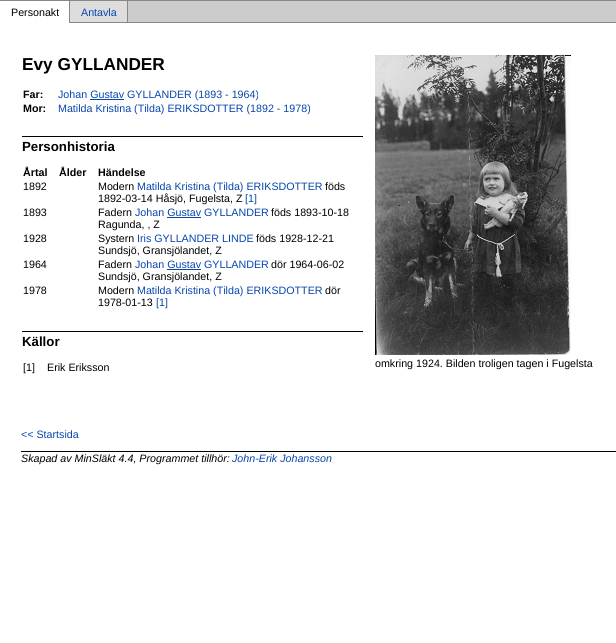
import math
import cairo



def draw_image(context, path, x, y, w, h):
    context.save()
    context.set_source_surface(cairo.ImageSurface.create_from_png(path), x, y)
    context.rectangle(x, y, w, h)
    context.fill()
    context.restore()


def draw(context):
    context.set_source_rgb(1, 1, 1)
    context.paint()
    context.set_source_rgb(136 / 255, 136 / 255, 136 / 255)
    context.rectangle(0, 0, 616, 1)
    context.fill()
    context.rectangle(69, 0, 1, 23)
    context.fill()
    context.set_source_rgb(221 / 255, 221 / 255, 221 / 255)
    context.rectangle(70, 1, 57, 21)
    context.fill()
    context.set_source_rgb(136 / 255, 136 / 255, 136 / 255)
    context.rectangle(127, 0, 1, 23)
    context.fill()
    context.rectangle(70, 22, 546, 1)
    context.fill()
    context.set_source_rgb(204 / 255, 204 / 255, 204 / 255)
    context.rectangle(128, 1, 488, 21)
    context.fill()
    context.set_source_rgb(6 / 255, 69 / 255, 173 / 255)
    context.rectangle(90, 99, 34, 1)
    context.fill()
    context.set_source_rgb(0, 0, 0)
    context.rectangle(22, 136, 341, 1)
    context.fill()
    context.set_source_rgb(6 / 255, 69 / 255, 173 / 255)
    context.rectangle(167, 217, 34, 1)
    context.fill()
    context.rectangle(167, 269, 34, 1)
    context.fill()
    context.set_source_rgb(0, 0, 0)
    context.rectangle(22, 331, 341, 1)
    context.fill()
    draw_image(context, "images/1.png", 375, 55, 196, 300)
    context.rectangle(21, 451, 595, 1)
    context.fill()
    context.select_font_face("Liberation Sans")
    context.set_font_size(10.7)
    context.move_to(11, 16)
    context.show_text("Personakt")
    context.set_source_rgb(6 / 255, 69 / 255, 173 / 255)
    context.move_to(81, 16)
    context.show_text("Antavla")
    context.select_font_face("Liberation Sans", cairo.FontSlant.NORMAL, cairo.FontWeight.BOLD)
    context.set_font_size(17.25)
    context.set_source_rgb(0, 0, 0)
    context.move_to(22, 70)
    context.show_text("Evy GYLLANDER")
    context.set_font_size(10.7)
    context.move_to(23, 98)
    context.show_text("Far:")
    context.select_font_face("Liberation Sans")
    context.set_source_rgb(6 / 255, 69 / 255, 173 / 255)
    context.move_to(58, 98)
    context.show_text("Johan Gustav GYLLANDER (1893 - 1964)")
    context.select_font_face("Liberation Sans", cairo.FontSlant.NORMAL, cairo.FontWeight.BOLD)
    context.set_source_rgb(0, 0, 0)
    context.move_to(23, 112)
    context.show_text("Mor:")
    context.select_font_face("Liberation Sans")
    context.set_source_rgb(6 / 255, 69 / 255, 173 / 255)
    context.move_to(58, 112)
    context.show_text("Matilda Kristina (Tilda) ERIKSDOTTER (1892 - 1978)")
    context.select_font_face("Liberation Sans", cairo.FontSlant.NORMAL, cairo.FontWeight.BOLD)
    context.set_font_size(13.25)
    context.set_source_rgb(0, 0, 0)
    context.move_to(22, 151)
    context.show_text("Personhistoria")
    context.set_font_size(10.7)
    context.move_to(23, 176)
    context.show_text("Årtal")
    context.move_to(59, 176)
    context.show_text("Ålder")
    context.move_to(98, 176)
    context.show_text("Händelse")
    context.select_font_face("Liberation Sans")
    context.move_to(23, 190)
    context.show_text("1892")
    context.move_to(98, 190)
    context.show_text("Modern")
    context.set_source_rgb(6 / 255, 69 / 255, 173 / 255)
    context.move_to(137, 190)
    context.show_text("Matilda Kristina (Tilda) ERIKSDOTTER")
    context.set_source_rgb(0, 0, 0)
    context.move_to(325, 190)
    context.show_text("föds")
    context.move_to(98, 202)
    context.show_text("1892-03-14 Håsjö, Fugelsta, Z")
    context.set_source_rgb(6 / 255, 69 / 255, 173 / 255)
    context.move_to(245, 202)
    context.show_text("[1]")
    context.set_source_rgb(0, 0, 0)
    context.move_to(23, 216)
    context.show_text("1893")
    context.move_to(98, 216)
    context.show_text("Fadern")
    context.set_source_rgb(6 / 255, 69 / 255, 173 / 255)
    context.move_to(135, 216)
    context.show_text("Johan Gustav GYLLANDER")
    context.set_source_rgb(0, 0, 0)
    context.move_to(271, 216)
    context.show_text("föds 1893-10-18")
    context.move_to(98, 228)
    context.show_text("Ragunda, , Z")
    context.move_to(23, 242)
    context.show_text("1928")
    context.move_to(98, 242)
    context.show_text("Systern")
    context.set_source_rgb(6 / 255, 69 / 255, 173 / 255)
    context.move_to(137, 242)
    context.show_text("Iris GYLLANDER LINDE")
    context.set_source_rgb(0, 0, 0)
    context.move_to(256, 242)
    context.show_text("föds 1928-12-21")
    context.move_to(98, 254)
    context.show_text("Sundsjö, Gransjölandet, Z")
    context.move_to(23, 268)
    context.show_text("1964")
    context.move_to(98, 268)
    context.show_text("Fadern")
    context.set_source_rgb(6 / 255, 69 / 255, 173 / 255)
    context.move_to(135, 268)
    context.show_text("Johan Gustav GYLLANDER")
    context.set_source_rgb(0, 0, 0)
    context.move_to(271, 268)
    context.show_text("dör 1964-06-02")
    context.move_to(98, 280)
    context.show_text("Sundsjö, Gransjölandet, Z")
    context.move_to(23, 294)
    context.show_text("1978")
    context.move_to(98, 294)
    context.show_text("Modern")
    context.set_source_rgb(6 / 255, 69 / 255, 173 / 255)
    context.move_to(137, 294)
    context.show_text("Matilda Kristina (Tilda) ERIKSDOTTER")
    context.set_source_rgb(0, 0, 0)
    context.move_to(325, 294)
    context.show_text("dör")
    context.move_to(98, 306)
    context.show_text("1978-01-13")
    context.set_source_rgb(6 / 255, 69 / 255, 173 / 255)
    context.move_to(156, 306)
    context.show_text("[1]")
    context.select_font_face("Liberation Sans", cairo.FontSlant.NORMAL, cairo.FontWeight.BOLD)
    context.set_font_size(13.25)
    context.set_source_rgb(0, 0, 0)
    context.move_to(22, 346)
    context.show_text("Källor")
    context.select_font_face("Liberation Sans")
    context.set_font_size(10.7)
    context.move_to(23, 371)
    context.show_text("[1]")
    context.move_to(47, 371)
    context.show_text("Erik Eriksson")
    context.move_to(375, 367)
    context.show_text("omkring 1924. Bilden troligen tagen i Fugelsta")
    context.set_source_rgb(6 / 255, 69 / 255, 173 / 255)
    context.move_to(21, 438)
    context.show_text("<< Startsida")
    context.select_font_face("Liberation Sans", cairo.FontSlant.ITALIC)
    context.set_source_rgb(0, 0, 0)
    context.move_to(21, 462)
    context.show_text("Skapad av MinSläkt 4.4, Programmet tillhör:")
    context.set_source_rgb(6 / 255, 69 / 255, 173 / 255)
    context.move_to(232, 462)
    context.show_text("John-Erik Johansson")


surface = cairo.ImageSurface(cairo.Format.RGB24, 616, 643)
context = cairo.Context(surface)
options = cairo.FontOptions()
options.set_hint_metrics(cairo.HintMetrics.OFF)
options.set_hint_style(cairo.HintStyle.NONE)
context.set_font_options(options)
context.set_miter_limit(4)
draw(context)
surface.write_to_png("out.png")
